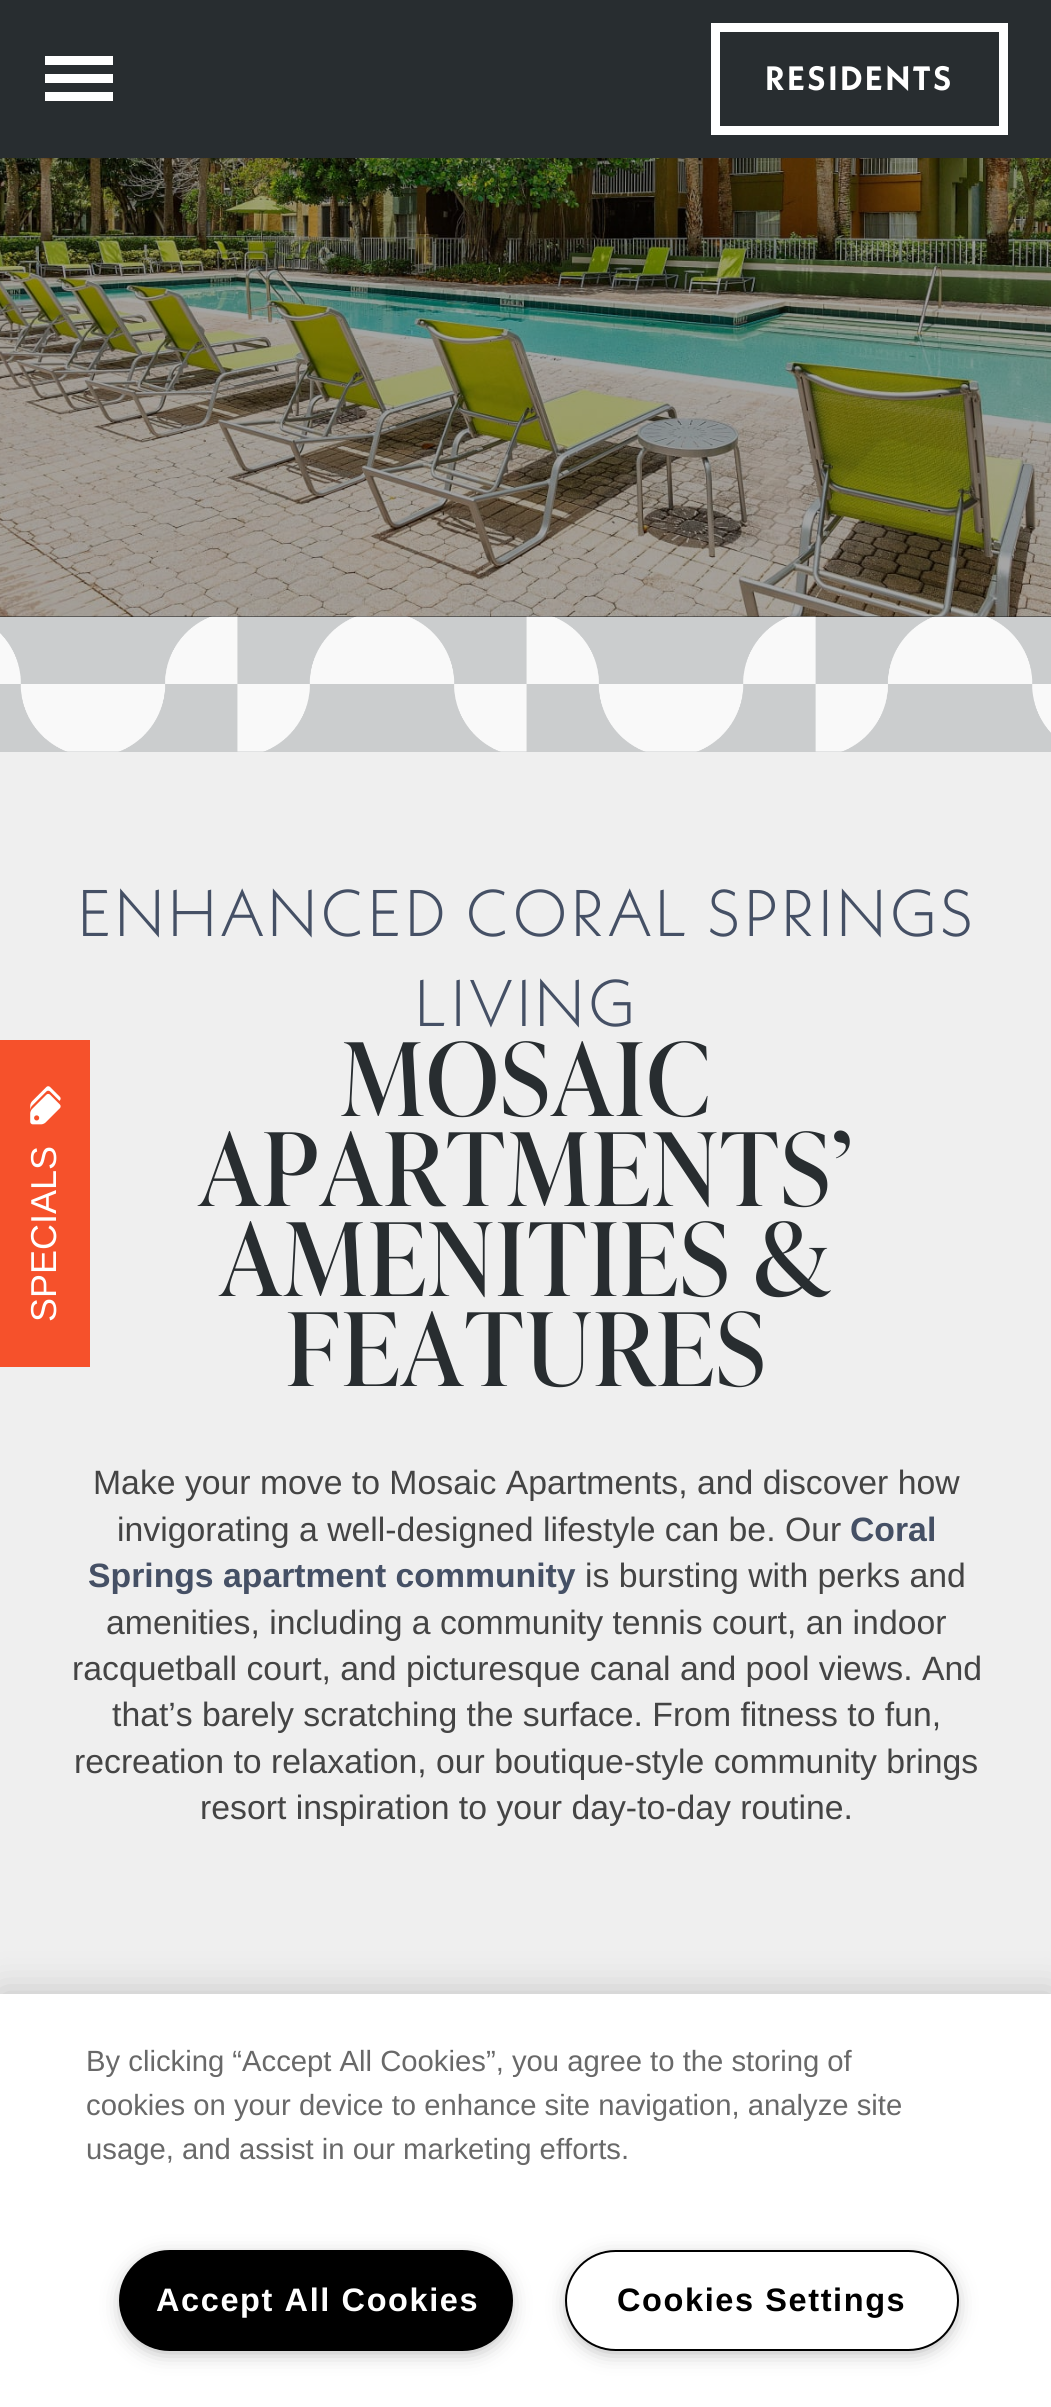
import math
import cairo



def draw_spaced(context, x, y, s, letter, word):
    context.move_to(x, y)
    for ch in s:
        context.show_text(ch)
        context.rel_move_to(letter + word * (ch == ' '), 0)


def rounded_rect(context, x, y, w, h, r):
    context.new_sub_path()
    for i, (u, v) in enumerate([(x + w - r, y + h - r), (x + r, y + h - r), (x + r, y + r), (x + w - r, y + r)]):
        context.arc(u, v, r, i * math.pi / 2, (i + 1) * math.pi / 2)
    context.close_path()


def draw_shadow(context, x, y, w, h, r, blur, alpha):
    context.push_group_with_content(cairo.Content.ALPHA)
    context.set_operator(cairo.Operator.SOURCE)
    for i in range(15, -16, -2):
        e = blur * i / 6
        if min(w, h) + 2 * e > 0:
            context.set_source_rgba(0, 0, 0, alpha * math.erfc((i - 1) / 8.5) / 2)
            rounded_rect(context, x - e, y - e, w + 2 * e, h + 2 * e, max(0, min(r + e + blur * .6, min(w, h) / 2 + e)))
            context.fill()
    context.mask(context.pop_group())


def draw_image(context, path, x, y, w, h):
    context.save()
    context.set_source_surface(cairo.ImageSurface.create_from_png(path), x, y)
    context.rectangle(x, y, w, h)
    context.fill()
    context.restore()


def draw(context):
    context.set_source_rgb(40 / 255, 45 / 255, 48 / 255)
    context.paint()
    context.set_source_rgb(1, 1, 1)
    context.rectangle(45, 56, 68, 9)
    context.fill()
    context.rectangle(45, 74, 68, 9)
    context.fill()
    context.rectangle(45, 92, 68, 9)
    context.fill()
    context.rectangle(715.5, 27.5, 288, 103)
    context.set_line_width(9)
    context.stroke()
    context.set_source_rgb(239 / 255, 239 / 255, 239 / 255)
    context.rectangle(0, 752, 1051, 1242)
    context.fill()
    context.set_source_rgb(246 / 255, 81 / 255, 43 / 255)
    context.rectangle(0, 1040, 90, 327)
    context.fill()
    draw_image(context, "images/1.png", 30, 1086, 31, 39)
    draw_image(context, "images/2.png", 0, 158, 1051, 459)
    context.set_source_rgb(203 / 255, 205 / 255, 206 / 255)
    context.rectangle(0, 617, 1051, 135)
    context.fill()
    draw_image(context, "images/3.png", 0, 616, 1051, 136)
    context.set_source_rgba(0, 0, 0, 0.35)
    context.rectangle(0, 158, 1051, 459)
    context.fill()
    context.set_source_rgb(0, 0, 0)
    draw_shadow(context, 0, 1994, 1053, 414, 0, 20, 0.2)
    context.set_source_rgb(1, 1, 1)
    context.rectangle(0, 1994, 1051, 413)
    context.fill()
    context.set_source_rgb(153 / 255, 153 / 255, 153 / 255)
    draw_shadow(context, 126, 2261, 380, 88, 44, 11, 1)
    context.set_source_rgb(0, 0, 0)
    rounded_rect(context, 120, 2251, 392, 99, 49.5)
    context.fill_preserve()
    context.set_line_width(2)
    context.stroke()
    context.set_source_rgb(153 / 255, 153 / 255, 153 / 255)
    draw_shadow(context, 572, 2261, 380, 88, 44, 11, 1)
    context.set_source_rgb(1, 1, 1)
    rounded_rect(context, 566, 2251, 392, 99, 49.5)
    context.fill_preserve()
    context.set_source_rgb(0, 0, 0)
    context.stroke()
    context.select_font_face("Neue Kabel", cairo.FontSlant.NORMAL, cairo.FontWeight.BOLD)
    context.set_font_size(33.75)
    context.set_source_rgb(1, 1, 1)
    draw_spaced(context, 765, 90, "RESIDENTS", 2.25, 0)
    context.select_font_face("Liberation Sans")
    context.set_font_size(36)
    context.save()
    context.translate(56, 1322)
    context.rotate(-90 * math.pi / 180)
    context.move_to(0, 0)
    context.show_text("SPECIALS")
    context.restore()
    context.select_font_face("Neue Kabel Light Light")
    context.set_font_size(65.75)
    context.set_source_rgb(69 / 255, 80 / 255, 101 / 255)
    draw_spaced(context, 77, 936, "ENHANCED CORAL SPRINGS", 2.25, 0)
    draw_spaced(context, 414, 1026, "LIVING", 2.25, 0)
    context.select_font_face("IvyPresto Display")
    context.set_font_size(101.25)
    context.set_source_rgb(40 / 255, 45 / 255, 48 / 255)
    draw_spaced(context, 341, 1116, "MOSAIC", 2.25, 0)
    draw_spaced(context, 199, 1206, "APARTMENTS’", 2.25, 0)
    draw_spaced(context, 220, 1296, "AMENITIES &", 2.25, 0)
    draw_spaced(context, 286, 1386, "FEATURES", 2.25, 0)
    context.select_font_face("Liberation Sans")
    context.set_font_size(33.75)
    context.set_source_rgb(68 / 255, 68 / 255, 68 / 255)
    context.move_to(93, 1494)
    context.show_text("Make your move to Mosaic Apartments, and discover how")
    context.move_to(117, 1541)
    context.show_text("invigorating a well-designed lifestyle can be. Our")
    context.select_font_face("Liberation Sans", cairo.FontSlant.NORMAL, cairo.FontWeight.BOLD)
    context.set_source_rgb(69 / 255, 80 / 255, 101 / 255)
    context.move_to(850, 1541)
    context.show_text("Coral")
    context.move_to(88, 1587)
    context.show_text("Springs apartment community")
    context.select_font_face("Liberation Sans")
    context.set_source_rgb(68 / 255, 68 / 255, 68 / 255)
    context.move_to(585, 1587)
    context.show_text("is bursting with perks and")
    context.move_to(106, 1634)
    context.show_text("amenities, including a community tennis court, an indoor")
    context.move_to(72, 1680)
    context.show_text("racquetball court, and picturesque canal and pool views. And")
    context.move_to(112, 1726)
    context.show_text("that’s barely scratching the surface. From fitness to fun,")
    context.move_to(74, 1773)
    context.show_text("recreation to relaxation, our boutique-style community brings")
    context.move_to(200, 1819)
    context.show_text("resort inspiration to your day-to-day routine.")
    context.set_font_size(29.25)
    context.set_source_rgb(105 / 255, 105 / 255, 105 / 255)
    context.move_to(86, 2071)
    context.show_text("By clicking “Accept All Cookies”, you agree to the storing of")
    context.move_to(86, 2115)
    context.show_text("cookies on your device to enhance site navigation, analyze site")
    context.move_to(86, 2159)
    context.show_text("usage, and assist in our marketing efforts.")
    context.select_font_face("Liberation Sans", cairo.FontSlant.NORMAL, cairo.FontWeight.BOLD)
    context.set_font_size(32.5)
    context.set_source_rgb(1, 1, 1)
    draw_spaced(context, 156, 2311, "Accept All Cookies", 1.6, 0)
    context.set_source_rgb(0, 0, 0)
    draw_spaced(context, 617, 2311, "Cookies Settings", 1.6, 0)


surface = cairo.ImageSurface(cairo.Format.RGB24, 1051, 2407)
context = cairo.Context(surface)
options = cairo.FontOptions()
options.set_hint_metrics(cairo.HintMetrics.OFF)
options.set_hint_style(cairo.HintStyle.NONE)
context.set_font_options(options)
context.set_miter_limit(4)
draw(context)
surface.write_to_png("out.png")
